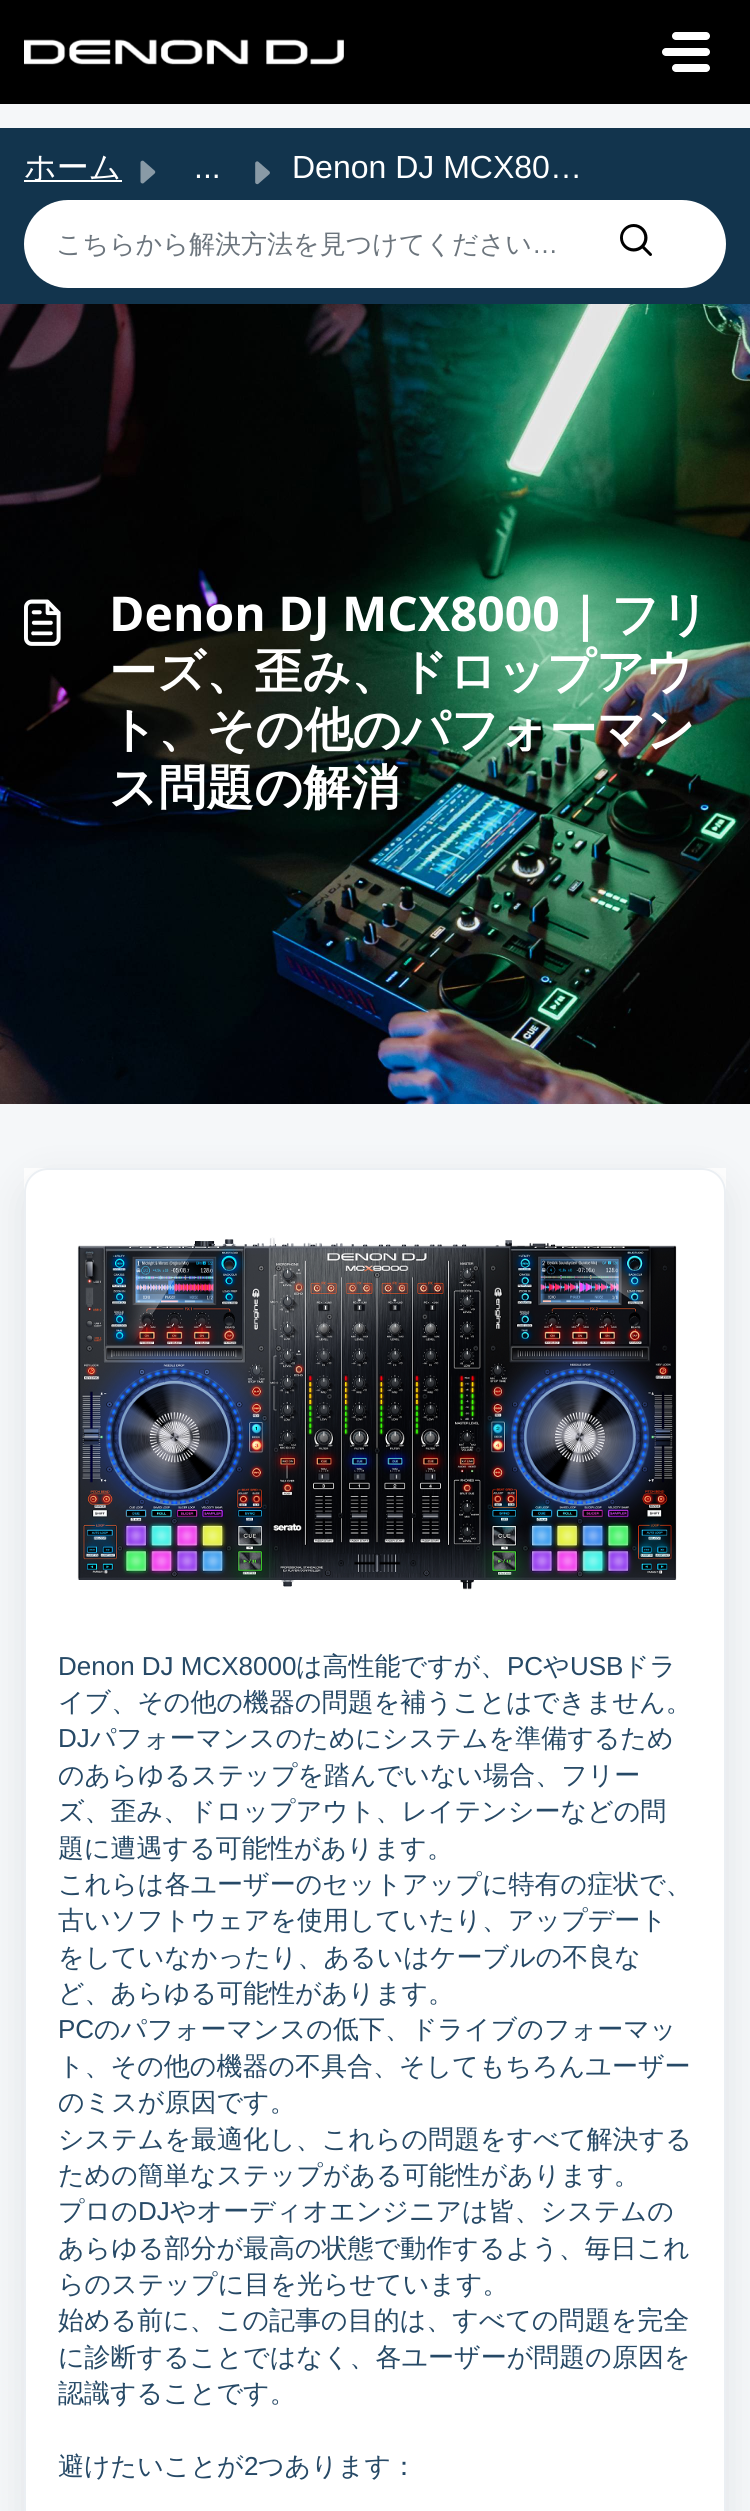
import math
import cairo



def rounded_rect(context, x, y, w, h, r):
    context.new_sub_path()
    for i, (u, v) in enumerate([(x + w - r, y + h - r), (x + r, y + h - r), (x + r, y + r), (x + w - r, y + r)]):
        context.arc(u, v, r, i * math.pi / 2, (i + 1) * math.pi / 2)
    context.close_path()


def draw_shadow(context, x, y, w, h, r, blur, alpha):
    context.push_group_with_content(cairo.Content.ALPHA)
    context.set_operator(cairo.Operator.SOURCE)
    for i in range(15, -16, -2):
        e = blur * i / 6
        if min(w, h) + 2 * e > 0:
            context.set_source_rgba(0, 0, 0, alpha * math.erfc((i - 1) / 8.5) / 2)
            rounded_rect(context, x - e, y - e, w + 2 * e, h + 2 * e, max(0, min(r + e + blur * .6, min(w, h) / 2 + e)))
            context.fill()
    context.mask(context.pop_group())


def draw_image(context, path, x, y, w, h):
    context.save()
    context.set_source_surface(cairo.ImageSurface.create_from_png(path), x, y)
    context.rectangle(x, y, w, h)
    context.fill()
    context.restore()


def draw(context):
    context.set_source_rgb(245 / 255, 247 / 255, 249 / 255)
    context.paint()
    context.set_source_rgb(0, 0, 0)
    context.rectangle(0, 0, 750, 104)
    context.fill()
    draw_image(context, "images/1.png", 24, 39, 320, 26)
    context.set_source_rgb(1, 1, 1)
    rounded_rect(context, 672, 32, 38, 8, 4)
    context.fill()
    rounded_rect(context, 662, 48, 48, 8, 4)
    context.fill()
    rounded_rect(context, 672, 64, 38, 8, 4)
    context.fill()
    context.set_source_rgb(18 / 255, 52 / 255, 77 / 255)
    context.rectangle(0, 128, 750, 176)
    context.fill()
    context.set_source_rgb(1, 1, 1)
    context.rectangle(24, 180, 98, 2)
    context.fill()
    draw_image(context, "images/2.png", 140, 160, 16, 24)
    draw_image(context, "images/3.png", 255, 161, 15, 24)
    rounded_rect(context, 24, 200, 702, 88, 44)
    context.fill()
    draw_image(context, "images/4.png", 620, 224, 32, 32)
    draw_image(context, "images/5.png", 0, 304, 750, 800)
    draw_image(context, "images/6.png", 24, 599, 37, 47)
    context.rectangle(24, 1168, 702, 1343)
    context.fill()
    context.save()
    context.set_fill_rule(cairo.FillRule.EVEN_ODD)
    context.new_path()
    context.move_to(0, 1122)
    context.line_to(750, 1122)
    context.line_to(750, 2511)
    context.line_to(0, 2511)
    context.close_path()
    context.move_to(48, 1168)
    context.line_to(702, 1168)
    context.curve_to(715.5, 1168, 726, 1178.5, 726, 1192)
    context.line_to(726, 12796)
    context.curve_to(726, 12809.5, 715.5, 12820, 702, 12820)
    context.line_to(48, 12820)
    context.curve_to(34.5, 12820, 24, 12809.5, 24, 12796)
    context.line_to(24, 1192)
    context.curve_to(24, 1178.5, 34.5, 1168, 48, 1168)
    context.close_path()
    context.clip()
    context.set_source_rgb(39 / 255, 49 / 255, 58 / 255)
    draw_shadow(context, 24, 1180, 702, 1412, 24, 19, 0.1)
    context.restore()
    rounded_rect(context, 25, 1169, 700, 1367, 23)
    context.set_source_rgb(235 / 255, 239 / 255, 243 / 255)
    context.stroke()
    draw_image(context, "images/7.png", 77, 1237, 600, 353)
    context.select_font_face("WenQuanYi Zen Hei Medium")
    context.set_font_size(32)
    context.set_source_rgb(1, 1, 1)
    context.move_to(24, 178)
    context.show_text("ホーム")
    context.select_font_face("Liberation Sans")
    context.move_to(194, 178)
    context.show_text("...")
    context.move_to(292, 178)
    context.show_text("Denon DJ MCX80…")
    context.select_font_face("WenQuanYi Zen Hei Medium")
    context.set_font_size(26)
    context.set_source_rgb(108 / 255, 117 / 255, 125 / 255)
    context.move_to(56, 253)
    context.show_text("こちらから解決方法を見つけてください")
    context.select_font_face("Liberation Sans")
    context.move_to(532, 253)
    context.show_text("…")
    context.select_font_face("Open Sans", cairo.FontSlant.NORMAL, cairo.FontWeight.BOLD)
    context.set_font_size(48)
    context.set_source_rgb(1, 1, 1)
    context.move_to(109, 631)
    context.show_text("Denon DJ MCX8000 |")
    context.select_font_face("WenQuanYi Zen Hei", cairo.FontSlant.NORMAL, cairo.FontWeight.BOLD)
    context.move_to(611, 631)
    context.show_text("フリ")
    context.move_to(109, 688)
    context.show_text("ーズ、歪み、ドロップアウ")
    context.move_to(109, 746)
    context.show_text("ト、その他のパフォーマン")
    context.move_to(109, 804)
    context.show_text("ス問題の解消")
    context.select_font_face("Liberation Sans")
    context.set_font_size(26)
    context.set_source_rgb(38 / 255, 73 / 255, 102 / 255)
    context.move_to(58, 1675)
    context.show_text("Denon DJ MCX8000")
    context.select_font_face("WenQuanYi Zen Hei Medium")
    context.move_to(296, 1675)
    context.show_text("は高性能ですが、")
    context.select_font_face("Liberation Sans")
    context.move_to(507, 1675)
    context.show_text("PC")
    context.select_font_face("WenQuanYi Zen Hei Medium")
    context.move_to(543, 1675)
    context.show_text("や")
    context.select_font_face("Liberation Sans")
    context.move_to(570, 1675)
    context.show_text("USB")
    context.select_font_face("WenQuanYi Zen Hei Medium")
    context.move_to(623, 1675)
    context.show_text("ドラ")
    context.move_to(58, 1711)
    context.show_text("イブ、その他の機器の問題を補うことはできません。")
    context.select_font_face("Liberation Sans")
    context.move_to(58, 1747)
    context.show_text("DJ")
    context.select_font_face("WenQuanYi Zen Hei Medium")
    context.move_to(90, 1747)
    context.show_text("パフォーマンスのためにシステムを準備するため")
    context.move_to(58, 1784)
    context.show_text("のあらゆるステップを踏んでいない場合、フリー")
    context.move_to(58, 1820)
    context.show_text("ズ、歪み、ドロップアウト、レイテンシーなどの問")
    context.move_to(58, 1857)
    context.show_text("題に遭遇する可能性があります。")
    context.move_to(58, 1893)
    context.show_text("これらは各ユーザーのセットアップに特有の症状で、")
    context.move_to(58, 1929)
    context.show_text("古いソフトウェアを使用していたり、アップデート")
    context.move_to(58, 1966)
    context.show_text("をしていなかったり、あるいはケーブルの不良な")
    context.move_to(58, 2002)
    context.show_text("ど、あらゆる可能性があります。")
    context.select_font_face("Liberation Sans")
    context.move_to(58, 2038)
    context.show_text("PC")
    context.select_font_face("WenQuanYi Zen Hei Medium")
    context.move_to(94, 2038)
    context.show_text("のパフォーマンスの低下、ドライブのフォーマッ")
    context.move_to(58, 2075)
    context.show_text("ト、その他の機器の不具合、そしてもちろんユーザー")
    context.move_to(58, 2111)
    context.show_text("のミスが原因です。")
    context.move_to(58, 2148)
    context.show_text("システムを最適化し、これらの問題をすべて解決する")
    context.move_to(58, 2184)
    context.show_text("ための簡単なステップがある可能性があります。")
    context.move_to(58, 2220)
    context.show_text("プロの")
    context.select_font_face("Liberation Sans")
    context.move_to(138, 2220)
    context.show_text("DJ")
    context.select_font_face("WenQuanYi Zen Hei Medium")
    context.move_to(170, 2220)
    context.show_text("やオーディオエンジニアは皆、システムの")
    context.move_to(58, 2257)
    context.show_text("あらゆる部分が最高の状態で動作するよう、毎日これ")
    context.move_to(58, 2293)
    context.show_text("らのステップに目を光らせています。")
    context.move_to(58, 2329)
    context.show_text("始める前に、この記事の目的は、すべての問題を完全")
    context.move_to(58, 2366)
    context.show_text("に診断することではなく、各ユーザーが問題の原因を")
    context.move_to(58, 2402)
    context.show_text("認識することです。")
    context.move_to(58, 2475)
    context.show_text("避けたいことが")
    context.select_font_face("Liberation Sans")
    context.move_to(244, 2475)
    context.show_text("2")
    context.select_font_face("WenQuanYi Zen Hei Medium")
    context.move_to(258, 2475)
    context.show_text("つあります：")


surface = cairo.ImageSurface(cairo.Format.RGB24, 750, 2511)
context = cairo.Context(surface)
options = cairo.FontOptions()
options.set_hint_metrics(cairo.HintMetrics.OFF)
options.set_hint_style(cairo.HintStyle.NONE)
context.set_font_options(options)
context.set_miter_limit(4)
draw(context)
surface.write_to_png("out.png")
